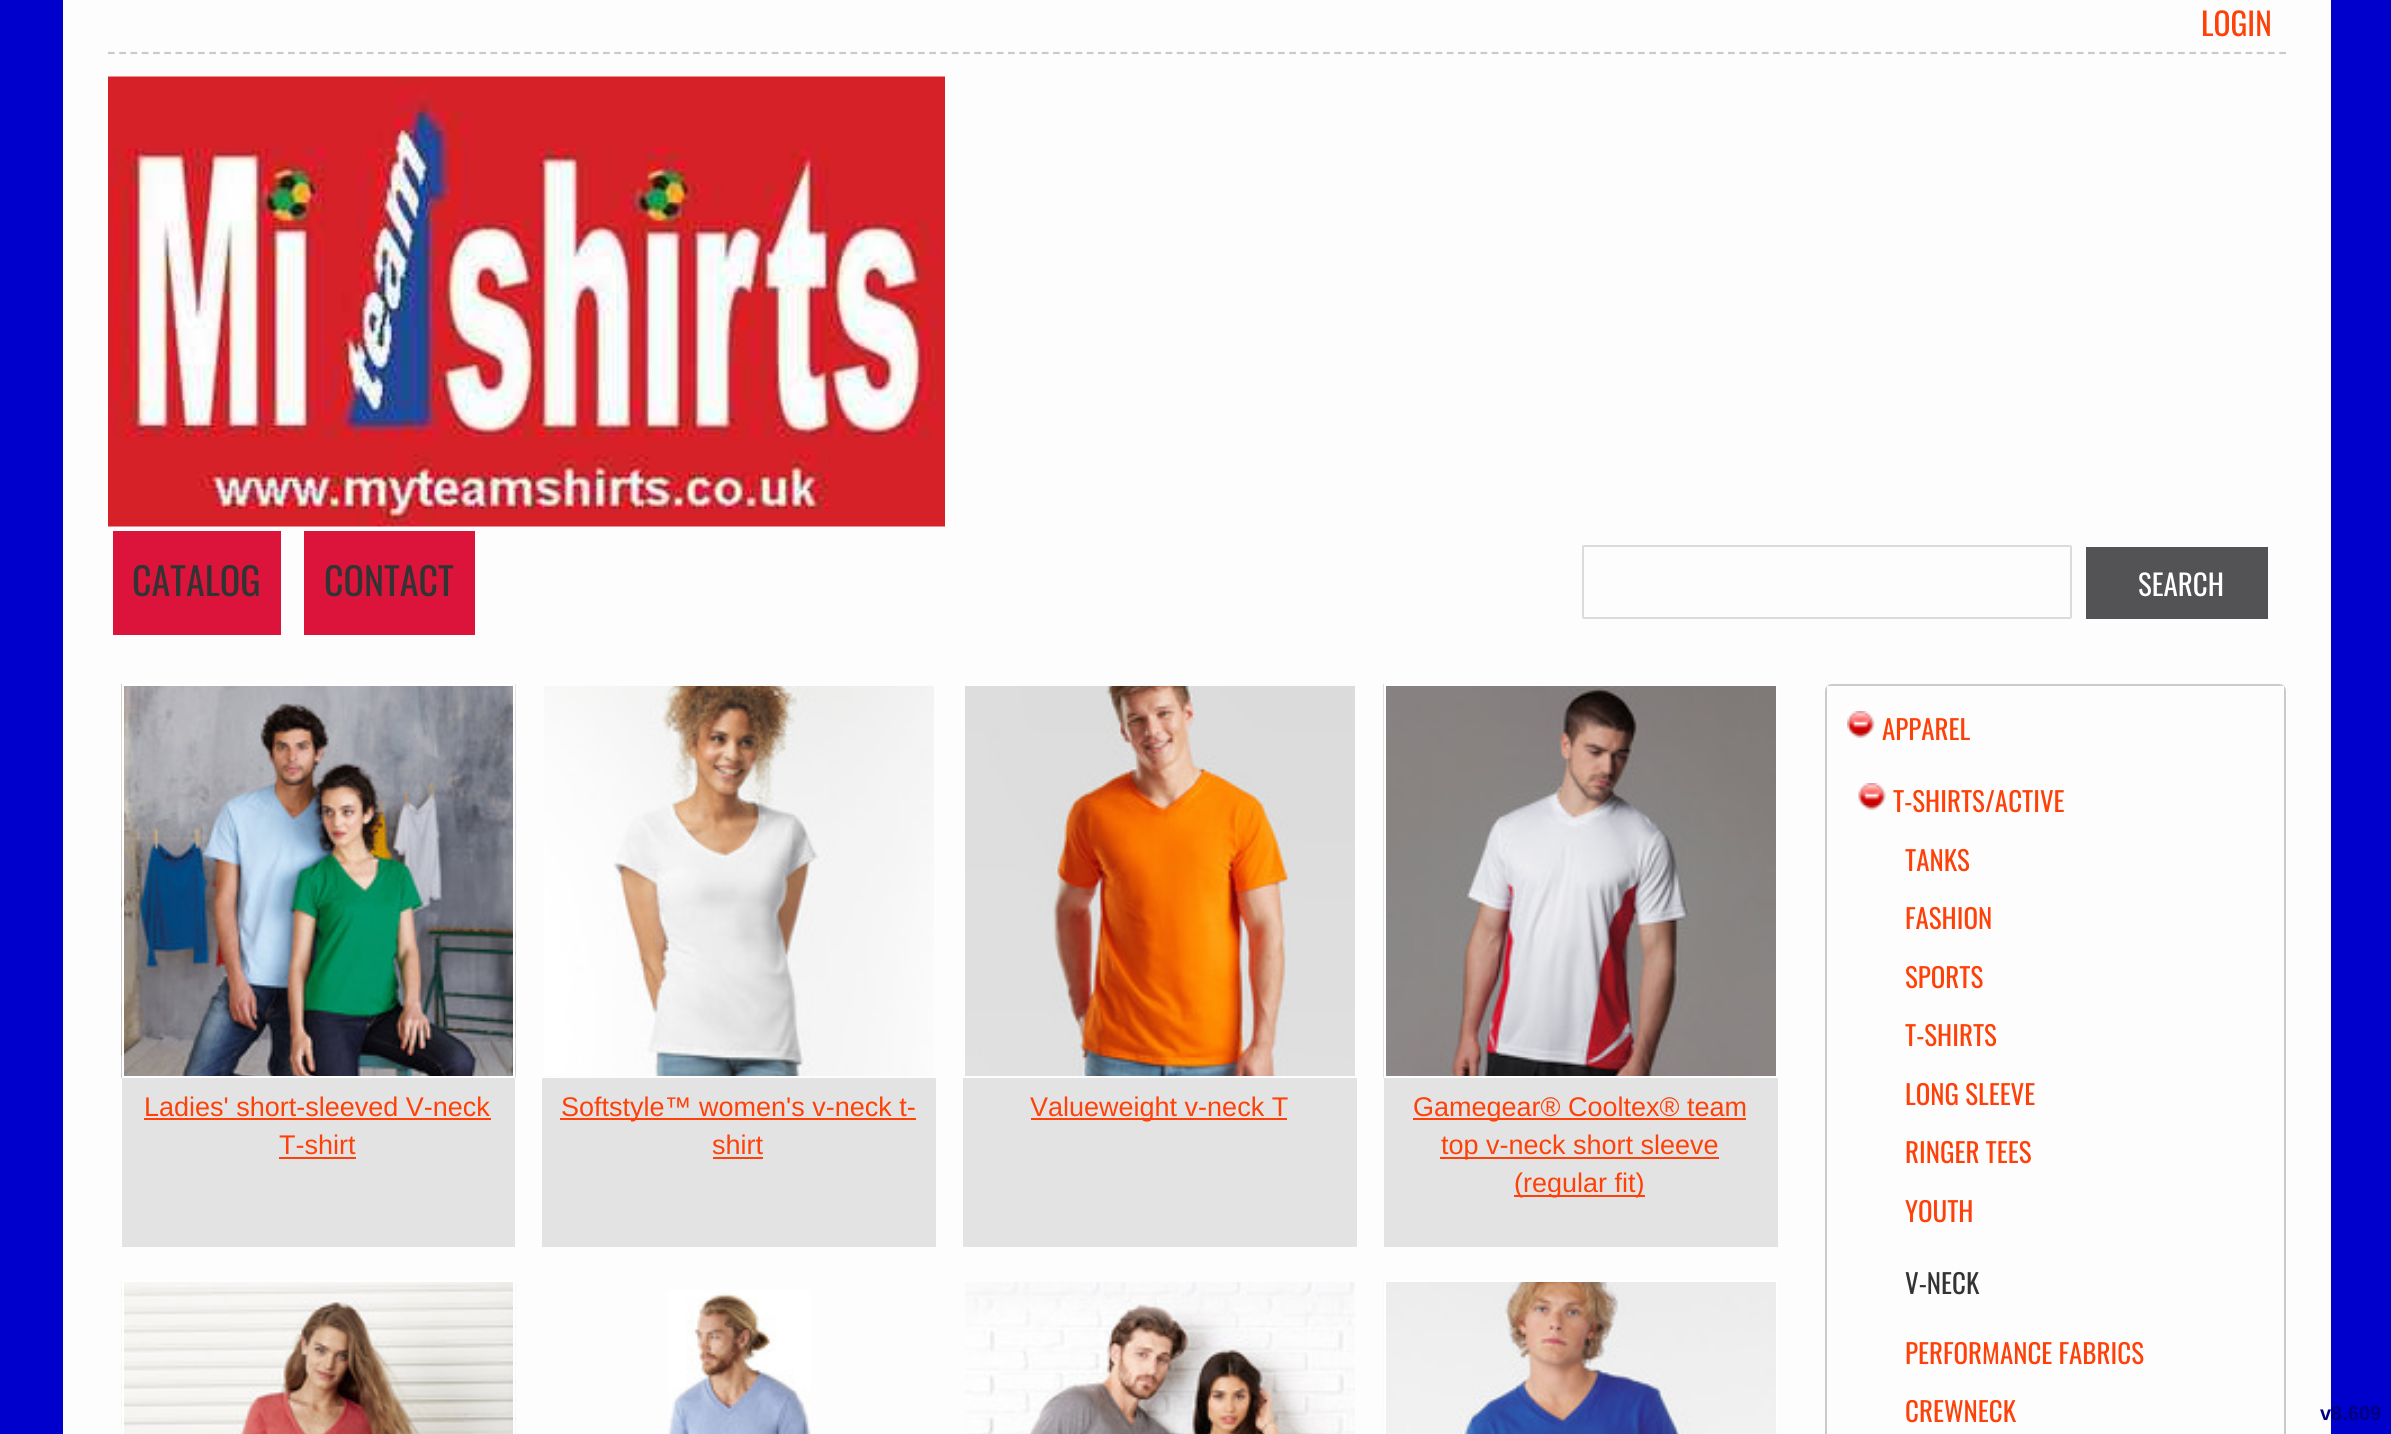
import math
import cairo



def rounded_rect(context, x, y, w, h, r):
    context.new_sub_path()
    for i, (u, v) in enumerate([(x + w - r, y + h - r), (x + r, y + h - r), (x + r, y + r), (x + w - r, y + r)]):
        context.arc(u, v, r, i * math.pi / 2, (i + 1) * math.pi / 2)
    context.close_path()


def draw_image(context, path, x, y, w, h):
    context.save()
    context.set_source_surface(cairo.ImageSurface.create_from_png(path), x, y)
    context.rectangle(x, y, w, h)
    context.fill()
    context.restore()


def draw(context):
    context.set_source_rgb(0, 0, 205 / 255)
    context.paint()
    context.set_source_rgb(253 / 255, 253 / 255, 253 / 255)
    context.rectangle(63, 0, 2268, 1434)
    context.fill()
    context.new_path()
    context.move_to(108, 53)
    context.line_to(2286, 53)
    context.set_source_rgb(202 / 255, 202 / 255, 202 / 255)
    context.set_line_width(2.2)
    context.set_dash([6.75, 4.5])
    context.stroke()
    draw_image(context, "images/1.png", 108, 76, 837, 451)
    context.set_source_rgb(220 / 255, 20 / 255, 60 / 255)
    context.rectangle(113, 531, 168, 104)
    context.fill()
    context.rectangle(304, 531, 171, 104)
    context.fill()
    rounded_rect(context, 1583, 546, 488, 72, 1)
    context.set_source_rgb(220 / 255, 219 / 255, 219 / 255)
    context.set_line_width(2)
    context.set_dash([])
    context.stroke()
    context.set_source_rgb(83 / 255, 83 / 255, 85 / 255)
    context.rectangle(2086, 547, 182, 72)
    context.fill()
    draw_image(context, "images/2.png", 121, 684, 395, 394)
    context.rectangle(123, 685, 391, 392)
    context.set_source_rgb(1, 1, 1)
    context.stroke()
    context.set_source_rgb(227 / 255, 227 / 255, 227 / 255)
    context.rectangle(122, 1078, 393, 169)
    context.fill()
    context.set_source_rgb(254 / 255, 65 / 255, 9 / 255)
    context.rectangle(144, 1118, 347, 2)
    context.fill()
    context.rectangle(279, 1157, 77, 2)
    context.fill()
    draw_image(context, "images/3.png", 544, 686, 390, 390)
    context.set_source_rgb(227 / 255, 227 / 255, 227 / 255)
    context.rectangle(542, 1078, 394, 169)
    context.fill()
    context.set_source_rgb(254 / 255, 65 / 255, 9 / 255)
    context.rectangle(560, 1118, 356, 2)
    context.fill()
    context.rectangle(713, 1157, 50, 2)
    context.fill()
    draw_image(context, "images/4.png", 965, 686, 390, 390)
    context.set_source_rgb(227 / 255, 227 / 255, 227 / 255)
    context.rectangle(963, 1078, 394, 169)
    context.fill()
    context.set_source_rgb(254 / 255, 65 / 255, 9 / 255)
    context.rectangle(1031, 1118, 256, 2)
    context.fill()
    draw_image(context, "images/5.png", 1383, 684, 393, 394)
    context.rectangle(1385, 685, 392, 392)
    context.set_source_rgb(1, 1, 1)
    context.stroke()
    context.set_source_rgb(227 / 255, 227 / 255, 227 / 255)
    context.rectangle(1384, 1078, 394, 169)
    context.fill()
    context.set_source_rgb(254 / 255, 65 / 255, 9 / 255)
    context.rectangle(1413, 1118, 333, 2)
    context.fill()
    context.rectangle(1440, 1157, 279, 2)
    context.fill()
    context.rectangle(1514, 1195, 131, 2)
    context.fill()
    draw_image(context, "images/6.png", 121, 1280, 395, 154)
    context.rectangle(123, 1281, 391, 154)
    context.set_source_rgb(1, 1, 1)
    context.stroke()
    draw_image(context, "images/7.png", 668, 1290, 143, 144)
    draw_image(context, "images/8.png", 965, 1282, 390, 152)
    draw_image(context, "images/9.png", 1383, 1280, 393, 154)
    context.rectangle(1385, 1281, 392, 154)
    context.stroke()
    context.set_source_rgb(202 / 255, 202 / 255, 202 / 255)
    context.set_fill_rule(cairo.FillRule.EVEN_ODD)
    context.new_path()
    context.move_to(1825, 691)
    context.line_to(1825, 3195)
    context.line_to(2286, 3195)
    context.line_to(2286, 691)
    context.curve_to(2286, 689, 2285, 687, 2284, 686)
    context.line_to(2284, 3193)
    context.line_to(1827, 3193)
    context.line_to(1827, 686)
    context.curve_to(1826, 687, 1825, 689, 1825, 691)
    context.close_path()
    context.move_to(1832, 684)
    context.curve_to(1830, 684, 1828, 685, 1827, 686)
    context.line_to(2284, 686)
    context.curve_to(2283, 685, 2281, 684, 2279, 684)
    context.close_path()
    context.fill()
    draw_image(context, "images/10.png", 1847, 711, 28, 27)
    draw_image(context, "images/11.png", 1858, 783, 28, 27)
    context.select_font_face("Oswald")
    context.set_font_size(31.5)
    context.set_source_rgb(254 / 255, 65 / 255, 9 / 255)
    context.move_to(2201, 36)
    context.show_text("LOGIN")
    context.set_font_size(38)
    context.set_source_rgb(51 / 255, 51 / 255, 51 / 255)
    context.move_to(132, 596)
    context.show_text("CATALOG")
    context.move_to(324, 596)
    context.show_text("CONTACT")
    context.set_font_size(29)
    context.set_source_rgb(1, 1, 1)
    context.move_to(2138, 596)
    context.show_text("SEARCH")
    context.select_font_face("Liberation Sans")
    context.set_font_size(27)
    context.set_source_rgb(254 / 255, 65 / 255, 9 / 255)
    context.move_to(144, 1116)
    context.show_text("Ladies' short-sleeved V-neck")
    context.move_to(279, 1154)
    context.show_text("T-shirt")
    context.move_to(561, 1116)
    context.show_text("Softstyle™ women's v-neck t-")
    context.move_to(712, 1154)
    context.show_text("shirt")
    context.move_to(1030, 1116)
    context.show_text("Valueweight v-neck T")
    context.move_to(1413, 1116)
    context.show_text("Gamegear® Cooltex® team")
    context.move_to(1441, 1154)
    context.show_text("top v-neck short sleeve")
    context.move_to(1514, 1192)
    context.show_text("(regular fit)")
    context.select_font_face("Oswald")
    context.move_to(1882, 740)
    context.show_text("APPAREL")
    context.move_to(1893, 812)
    context.show_text("T-SHIRTS/ACTIVE")
    context.move_to(1905, 871)
    context.show_text("TANKS")
    context.move_to(1905, 929)
    context.show_text("FASHION")
    context.move_to(1905, 988)
    context.show_text("SPORTS")
    context.move_to(1905, 1046)
    context.show_text("T-SHIRTS")
    context.move_to(1905, 1105)
    context.show_text("LONG SLEEVE")
    context.move_to(1905, 1163)
    context.show_text("RINGER TEES")
    context.move_to(1905, 1222)
    context.show_text("YOUTH")
    context.set_source_rgb(51 / 255, 51 / 255, 51 / 255)
    context.move_to(1905, 1294)
    context.show_text("V-NECK")
    context.set_source_rgb(254 / 255, 65 / 255, 9 / 255)
    context.move_to(1905, 1364)
    context.show_text("PERFORMANCE FABRICS")
    context.move_to(1905, 1422)
    context.show_text("CREWNECK")
    context.select_font_face("Liberation Sans", cairo.FontSlant.NORMAL, cairo.FontWeight.BOLD)
    context.set_font_size(20)
    context.set_source_rgb(0, 0, 128 / 255)
    context.move_to(2320, 1420)
    context.show_text("v8.609")


surface = cairo.ImageSurface(cairo.Format.RGB24, 2391, 1434)
context = cairo.Context(surface)
options = cairo.FontOptions()
options.set_hint_metrics(cairo.HintMetrics.OFF)
options.set_hint_style(cairo.HintStyle.NONE)
context.set_font_options(options)
context.set_miter_limit(4)
draw(context)
surface.write_to_png("out.png")
